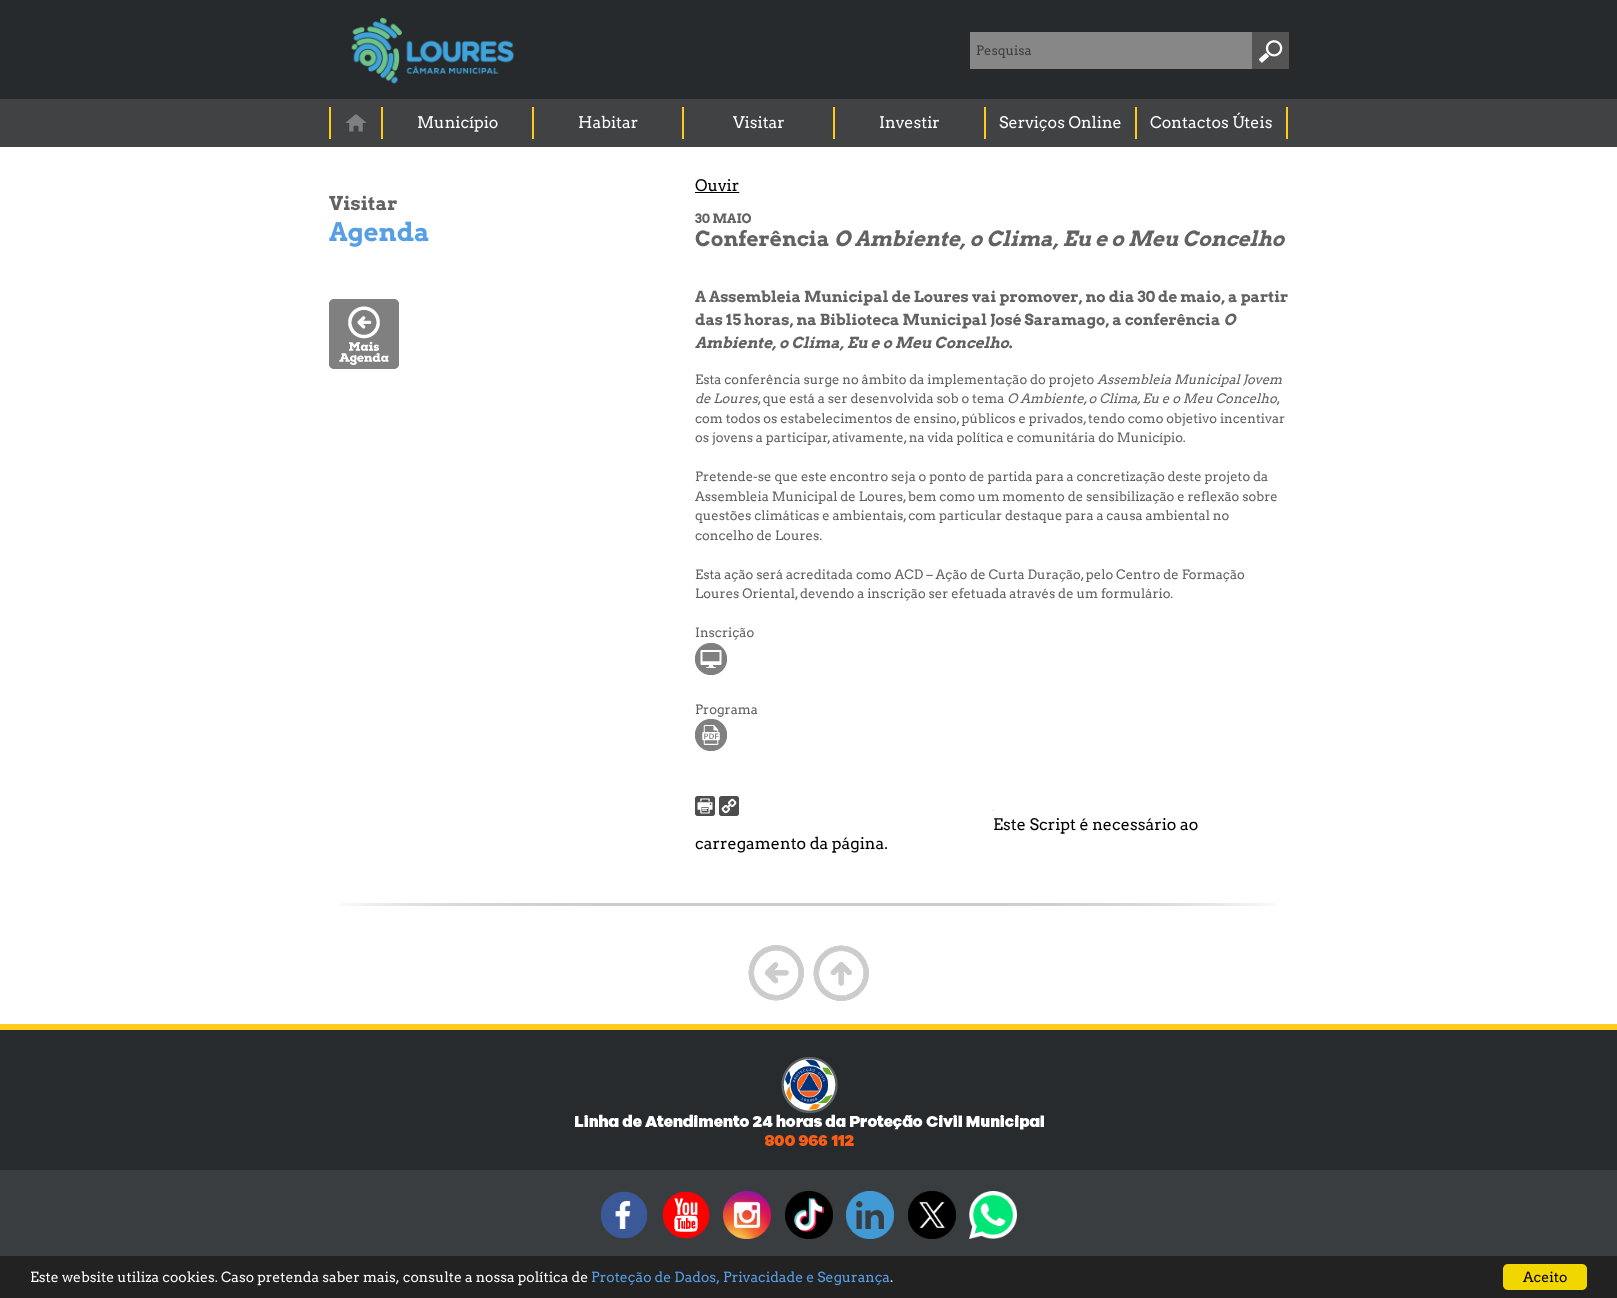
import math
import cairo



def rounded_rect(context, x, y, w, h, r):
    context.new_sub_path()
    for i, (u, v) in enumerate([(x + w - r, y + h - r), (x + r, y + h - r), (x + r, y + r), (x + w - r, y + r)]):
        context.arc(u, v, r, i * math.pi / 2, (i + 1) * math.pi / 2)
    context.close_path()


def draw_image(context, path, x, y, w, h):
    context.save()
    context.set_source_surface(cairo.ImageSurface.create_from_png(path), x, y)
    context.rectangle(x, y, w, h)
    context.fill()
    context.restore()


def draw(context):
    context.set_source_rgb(1, 1, 1)
    context.paint()
    context.set_source_rgb(39 / 255, 42 / 255, 44 / 255)
    context.rectangle(0, 0, 1617, 99)
    context.fill()
    draw_image(context, "images/1.png", 351, 17, 163, 67)
    context.set_source_rgb(135 / 255, 135 / 255, 135 / 255)
    context.rectangle(970, 32, 282, 37)
    context.fill()
    draw_image(context, "images/2.png", 1252, 32, 37, 37)
    context.set_source_rgb(64 / 255, 66 / 255, 68 / 255)
    context.rectangle(0, 99, 1617, 48)
    context.fill()
    context.set_source_rgb(254 / 255, 203 / 255, 28 / 255)
    context.rectangle(329, 107, 2, 32)
    context.fill()
    context.rectangle(381, 107, 2, 32)
    context.fill()
    draw_image(context, "images/3.png", 346, 114, 20, 18)
    context.rectangle(532, 107, 2, 32)
    context.fill()
    context.rectangle(682, 107, 2, 32)
    context.fill()
    context.rectangle(833, 107, 2, 32)
    context.fill()
    context.rectangle(984, 107, 2, 32)
    context.fill()
    context.rectangle(1135, 107, 2, 32)
    context.fill()
    context.rectangle(1286, 107, 2, 32)
    context.fill()
    draw_image(context, "images/4.png", 329, 299, 70, 70)
    draw_image(context, "images/5.png", 695, 179, 593, 674)
    draw_image(context, "images/6.png", 339, 903, 938, 3)
    draw_image(context, "images/7.png", 748, 945, 56, 56)
    draw_image(context, "images/8.png", 813, 945, 56, 56)
    context.set_source_rgb(40 / 255, 43 / 255, 46 / 255)
    context.rectangle(0, 1030, 1617, 140)
    context.fill()
    context.set_source_rgb(254 / 255, 203 / 255, 28 / 255)
    context.rectangle(0, 1024, 1617, 6)
    context.fill()
    draw_image(context, "images/9.png", 575, 1057, 469, 89)
    context.set_source_rgb(57 / 255, 61 / 255, 64 / 255)
    context.rectangle(0, 1170, 1617, 86)
    context.fill()
    draw_image(context, "images/10.png", 600, 1191, 48, 48)
    draw_image(context, "images/11.png", 662, 1191, 48, 48)
    draw_image(context, "images/12.png", 723, 1191, 48, 48)
    draw_image(context, "images/13.png", 785, 1191, 48, 48)
    draw_image(context, "images/14.png", 846, 1191, 48, 48)
    draw_image(context, "images/15.png", 908, 1191, 48, 48)
    draw_image(context, "images/16.png", 969, 1191, 48, 48)
    context.set_source_rgb(34 / 255, 34 / 255, 34 / 255)
    context.rectangle(0, 1256, 1617, 42)
    context.fill()
    context.set_source_rgb(241 / 255, 214 / 255, 0)
    rounded_rect(context, 1503, 1264, 84, 26, 5)
    context.fill()
    context.select_font_face("Arvo")
    context.set_font_size(13)
    context.set_source_rgb(62 / 255, 62 / 255, 62 / 255)
    context.move_to(976, 55)
    context.show_text("Pesquisa")
    context.set_font_size(16)
    context.set_source_rgb(1, 1, 1)
    context.move_to(417, 128)
    context.show_text("Município")
    context.move_to(578, 128)
    context.show_text("Habitar")
    context.move_to(733, 128)
    context.show_text("Visitar")
    context.move_to(879, 128)
    context.show_text("Investir")
    context.move_to(999, 128)
    context.show_text("Serviços Online")
    context.move_to(1150, 128)
    context.show_text("Contactos Úteis")
    context.save()
    context.rectangle(329, 160, 336, 276)
    context.clip()
    context.select_font_face("Arvo", cairo.FontSlant.NORMAL, cairo.FontWeight.BOLD)
    context.set_font_size(19)
    context.set_source_rgb(98 / 255, 98 / 255, 98 / 255)
    context.move_to(329, 210)
    context.show_text("Visitar")
    context.set_font_size(25.5)
    context.set_source_rgb(86 / 255, 159 / 255, 231 / 255)
    context.move_to(329, 241)
    context.show_text("Agenda")
    context.restore()
    context.set_font_size(14)
    context.move_to(30, 1282)
    context.show_text("Este website utiliza cookies. Caso pretenda saber mais, consulte a nossa política de")
    context.set_source_rgb(86 / 255, 159 / 255, 231 / 255)
    context.move_to(591, 1282)
    context.show_text("Proteção de Dados, Privacidade e Segurança")
    context.set_source_rgb(1, 1, 1)
    context.move_to(890, 1282)
    context.show_text(".")
    context.set_source_rgb(0, 0, 0)
    context.move_to(1523, 1282)
    context.show_text("Aceito")


surface = cairo.ImageSurface(cairo.Format.RGB24, 1617, 1298)
context = cairo.Context(surface)
options = cairo.FontOptions()
options.set_hint_metrics(cairo.HintMetrics.OFF)
options.set_hint_style(cairo.HintStyle.NONE)
context.set_font_options(options)
context.set_miter_limit(4)
draw(context)
surface.write_to_png("out.png")
